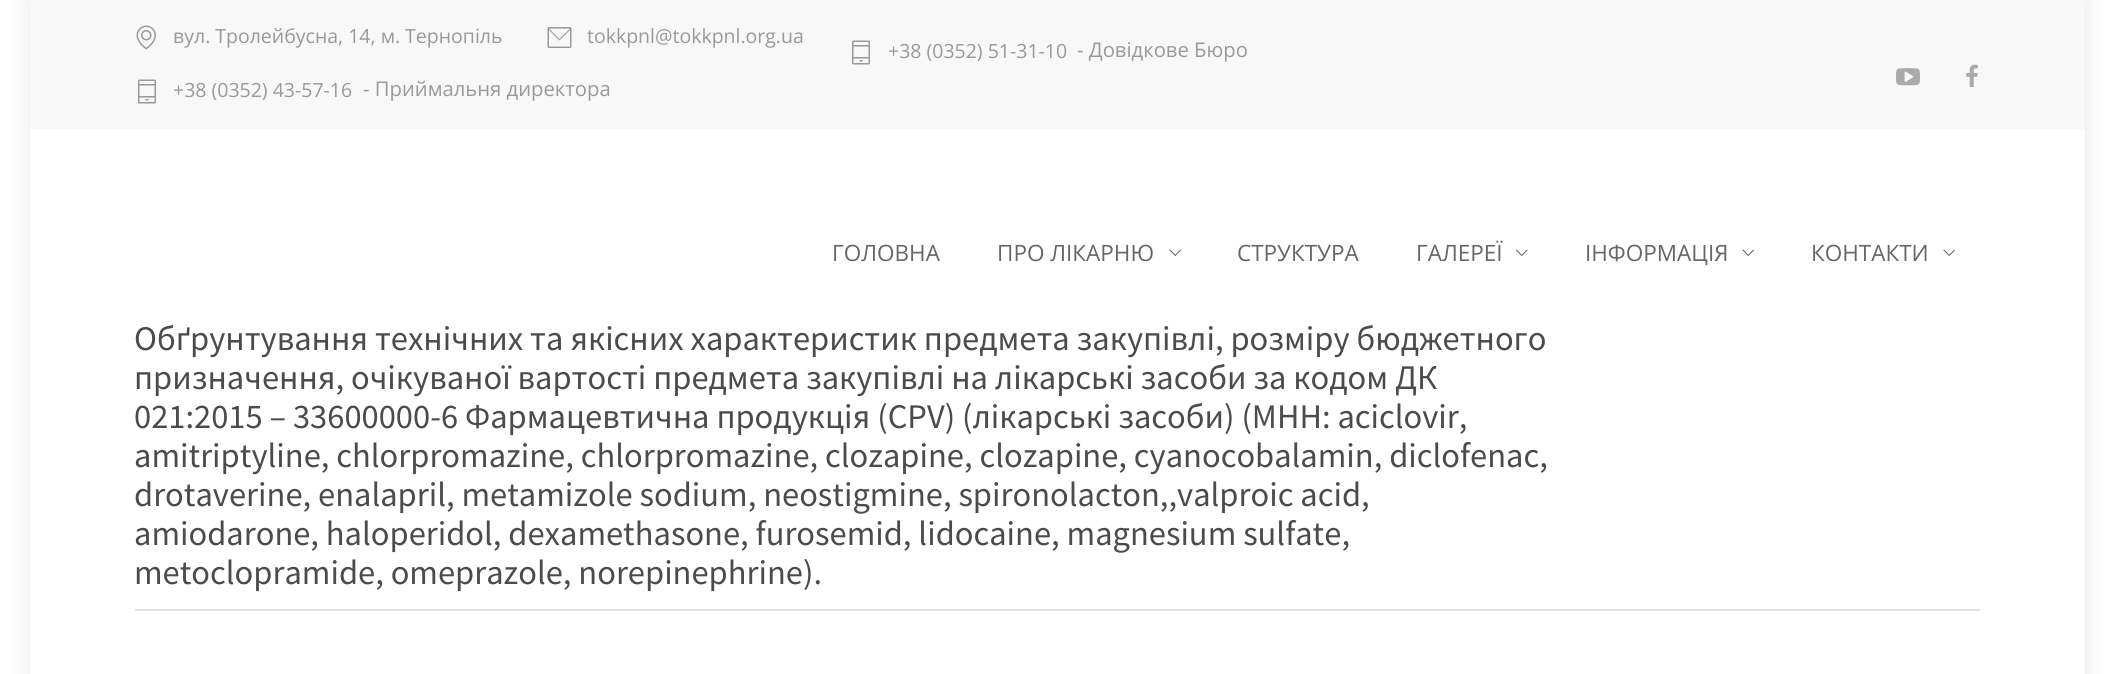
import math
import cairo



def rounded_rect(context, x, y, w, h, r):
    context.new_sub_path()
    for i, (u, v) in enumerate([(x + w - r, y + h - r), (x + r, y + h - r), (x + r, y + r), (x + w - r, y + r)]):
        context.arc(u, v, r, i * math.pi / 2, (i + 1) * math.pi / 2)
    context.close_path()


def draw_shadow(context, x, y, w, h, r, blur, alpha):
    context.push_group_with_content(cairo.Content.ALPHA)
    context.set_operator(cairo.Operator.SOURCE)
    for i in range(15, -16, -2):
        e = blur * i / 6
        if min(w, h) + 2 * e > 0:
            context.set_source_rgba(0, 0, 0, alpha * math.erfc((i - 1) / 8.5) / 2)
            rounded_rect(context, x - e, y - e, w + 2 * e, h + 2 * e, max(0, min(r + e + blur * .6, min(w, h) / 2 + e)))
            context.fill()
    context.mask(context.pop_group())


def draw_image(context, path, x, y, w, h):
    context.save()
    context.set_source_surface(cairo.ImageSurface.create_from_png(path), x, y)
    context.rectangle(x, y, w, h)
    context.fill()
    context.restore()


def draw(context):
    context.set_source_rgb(1, 1, 1)
    context.paint()
    context.save()
    context.set_fill_rule(cairo.FillRule.EVEN_ODD)
    context.new_path()
    context.move_to(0, 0)
    context.line_to(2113, 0)
    context.line_to(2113, 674)
    context.line_to(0, 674)
    context.close_path()
    context.move_to(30, 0)
    context.line_to(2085, 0)
    context.line_to(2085, 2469)
    context.line_to(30, 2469)
    context.close_path()
    context.clip()
    context.set_source_rgb(0, 0, 0)
    draw_shadow(context, 30, 0, 2055, 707, 0, 11, 0.1)
    context.restore()
    context.set_source_rgb(248 / 255, 248 / 255, 248 / 255)
    context.rectangle(30, 0, 2055, 129)
    context.fill()
    draw_image(context, "images/1.png", 136, 25, 20, 25)
    draw_image(context, "images/2.png", 547, 27, 25, 21)
    draw_image(context, "images/3.png", 852, 40, 18, 25)
    draw_image(context, "images/3.png", 138, 79, 18, 25)
    draw_image(context, "images/4.png", 1896, 68, 24, 18)
    draw_image(context, "images/5.png", 1966, 64, 12, 23)
    draw_image(context, "images/6.png", 1169, 249, 13, 7)
    draw_image(context, "images/7.png", 1515, 249, 13, 7)
    draw_image(context, "images/6.png", 1742, 249, 13, 7)
    draw_image(context, "images/6.png", 1943, 249, 13, 7)
    context.set_source_rgb(229 / 255, 229 / 255, 229 / 255)
    context.rectangle(135, 609, 1845, 2)
    context.fill()
    context.select_font_face("Open Sans")
    context.set_font_size(19.5)
    context.set_source_rgb(153 / 255, 153 / 255, 153 / 255)
    context.move_to(173, 43)
    context.show_text("вул. Тролейбусна, 14, м. Тернопіль")
    context.move_to(587, 43)
    context.show_text("tokkpnl@tokkpnl.org.ua")
    context.move_to(888, 58)
    context.show_text("+38 (0352) 51-31-10")
    context.set_font_size(20.25)
    context.move_to(1077, 57)
    context.show_text("- Довідкове Бюро")
    context.set_font_size(19.5)
    context.move_to(173, 97)
    context.show_text("+38 (0352) 43-57-16")
    context.set_font_size(20.25)
    context.move_to(363, 96)
    context.show_text("- Приймальня директора")
    context.set_font_size(22.5)
    context.set_source_rgb(102 / 255, 102 / 255, 102 / 255)
    context.move_to(832, 261)
    context.show_text("ГОЛОВНА")
    context.move_to(997, 261)
    context.show_text("ПРО ЛІКАРНЮ")
    context.move_to(1237, 261)
    context.show_text("СТРУКТУРА")
    context.move_to(1416, 261)
    context.show_text("ГАЛЕРЕЇ")
    context.move_to(1585, 261)
    context.show_text("ІНФОРМАЦІЯ")
    context.move_to(1811, 261)
    context.show_text("КОНТАКТИ")
    context.select_font_face("Source Sans Pro")
    context.set_font_size(34.5)
    context.set_source_rgb(75 / 255, 75 / 255, 75 / 255)
    context.move_to(134, 350)
    context.show_text("Обґрунтування технічних та якісних характеристик предмета закупівлі, розміру бюджетного")
    context.move_to(134, 389)
    context.show_text("призначення, очікуваної вартості предмета закупівлі на лікарські засоби за кодом ДК")
    context.move_to(134, 428)
    context.show_text("021:2015 – 33600000-6 Фармацевтична продукція (CPV) (лікарські засоби) (МНН: aciclovir,")
    context.move_to(134, 467)
    context.show_text("amitriptyline, chlorpromazine, chlorpromazine, clozapine, clozapine, cyanocobalamin, diclofenac,")
    context.move_to(134, 506)
    context.show_text("drotaverine, enalapril, metamizole sodium, neostigmine, spironolacton,,valproic acid,")
    context.move_to(134, 545)
    context.show_text("amiodarone, haloperidol, dexamethasone, furosemid, lidocaine, magnesium sulfate,")
    context.move_to(134, 584)
    context.show_text("metoclopramide, omeprazole, norepinephrine).")


surface = cairo.ImageSurface(cairo.Format.RGB24, 2113, 674)
context = cairo.Context(surface)
options = cairo.FontOptions()
options.set_hint_metrics(cairo.HintMetrics.OFF)
options.set_hint_style(cairo.HintStyle.NONE)
context.set_font_options(options)
context.set_miter_limit(4)
draw(context)
surface.write_to_png("out.png")
